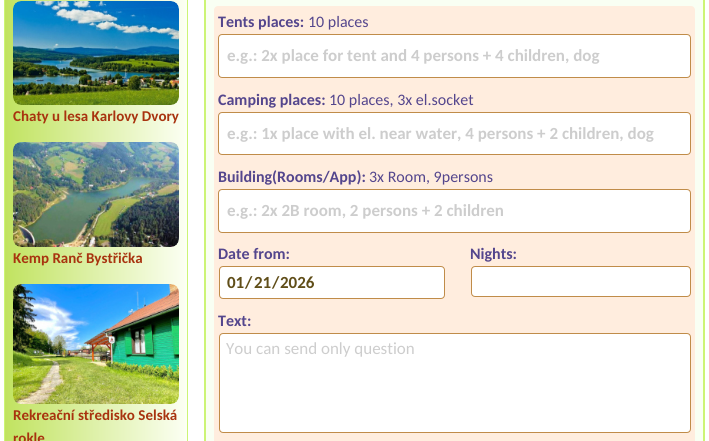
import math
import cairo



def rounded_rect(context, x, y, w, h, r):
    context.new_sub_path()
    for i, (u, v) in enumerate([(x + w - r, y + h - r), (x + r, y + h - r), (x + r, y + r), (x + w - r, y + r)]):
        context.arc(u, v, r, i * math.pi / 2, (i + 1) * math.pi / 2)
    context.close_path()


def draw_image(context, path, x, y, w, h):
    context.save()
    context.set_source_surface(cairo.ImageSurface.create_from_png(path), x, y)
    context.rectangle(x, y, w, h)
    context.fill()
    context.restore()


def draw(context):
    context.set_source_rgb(1, 1, 1)
    context.paint()
    gradient = cairo.LinearGradient(5, 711, 187, 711)
    gradient.add_color_stop_rgba(0, 193 / 255, 227 / 255, 96 / 255, 1)
    gradient.add_color_stop_rgba(1, 252 / 255, 1, 244 / 255, 1)
    context.set_source(gradient)
    context.rectangle(5, 0, 182, 441)
    context.fill()
    context.rectangle(4.5, -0.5, 183, 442)
    context.set_source_rgb(204 / 255, 244 / 255, 117 / 255)
    context.set_line_width(1)
    context.stroke()
    draw_image(context, "images/1.png", 13, 1, 166, 104)
    draw_image(context, "images/2.png", 13, 142, 166, 105)
    draw_image(context, "images/3.png", 13, 284, 166, 120)
    context.set_source_rgb(249 / 255, 1, 243 / 255)
    context.rectangle(205, -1, 499, 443)
    context.fill_preserve()
    context.set_source_rgb(204 / 255, 244 / 255, 117 / 255)
    context.set_line_width(2)
    context.stroke()
    context.set_source_rgb(1, 237 / 255, 222 / 255)
    rounded_rect(context, 214, 6, 481, 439, 4)
    context.fill()
    context.set_source_rgb(1, 1, 1)
    rounded_rect(context, 218.5, 34.5, 472, 43, 3.5)
    context.fill_preserve()
    context.set_source_rgb(192 / 255, 140 / 255, 73 / 255)
    context.set_line_width(1)
    context.stroke()
    context.set_source_rgb(1, 1, 1)
    rounded_rect(context, 218.5, 112.5, 472, 42, 3.5)
    context.fill_preserve()
    context.set_source_rgb(192 / 255, 140 / 255, 73 / 255)
    context.stroke()
    context.set_source_rgb(1, 1, 1)
    rounded_rect(context, 218.5, 189.5, 472, 43, 3.5)
    context.fill_preserve()
    context.set_source_rgb(192 / 255, 140 / 255, 73 / 255)
    context.stroke()
    context.set_source_rgb(1, 1, 1)
    rounded_rect(context, 219.5, 266.5, 225, 32, 3.5)
    context.fill_preserve()
    context.set_source_rgb(192 / 255, 140 / 255, 73 / 255)
    context.stroke()
    context.set_source_rgb(1, 1, 1)
    rounded_rect(context, 471.5, 266.5, 219, 30, 3.5)
    context.fill_preserve()
    context.set_source_rgb(192 / 255, 140 / 255, 73 / 255)
    context.stroke()
    context.set_source_rgb(1, 1, 1)
    rounded_rect(context, 219.5, 333.5, 471, 99, 3.5)
    context.fill_preserve()
    context.set_source_rgb(192 / 255, 140 / 255, 73 / 255)
    context.stroke()
    context.select_font_face("Carlito", cairo.FontSlant.NORMAL, cairo.FontWeight.BOLD)
    context.set_font_size(15)
    context.set_source_rgb(168 / 255, 51 / 255, 15 / 255)
    context.move_to(13, 121)
    context.show_text("Chaty u lesa Karlovy Dvory")
    context.move_to(13, 263)
    context.show_text("Kemp Ranč Bystřička")
    context.move_to(13, 420)
    context.show_text("Rekreační středisko Selská")
    context.move_to(13, 443)
    context.show_text("rokle")
    context.set_font_size(16)
    context.set_source_rgb(84 / 255, 70 / 255, 141 / 255)
    context.move_to(218, 27)
    context.show_text("Tents places:")
    context.select_font_face("Carlito")
    context.move_to(308, 27)
    context.show_text("10 places")
    context.select_font_face("Carlito", cairo.FontSlant.NORMAL, cairo.FontWeight.BOLD)
    context.set_font_size(17)
    context.set_source_rgb(205 / 255, 205 / 255, 205 / 255)
    context.move_to(227, 61)
    context.show_text("e.g.: 2x place for tent and 4 persons + 4 children, dog")
    context.set_font_size(16)
    context.set_source_rgb(84 / 255, 70 / 255, 141 / 255)
    context.move_to(218, 105)
    context.show_text("Camping places:")
    context.select_font_face("Carlito")
    context.move_to(329, 105)
    context.show_text("10 places, 3x el.socket")
    context.select_font_face("Carlito", cairo.FontSlant.NORMAL, cairo.FontWeight.BOLD)
    context.set_font_size(17)
    context.set_source_rgb(205 / 255, 205 / 255, 205 / 255)
    context.move_to(227, 139)
    context.show_text("e.g.: 1x place with el. near water, 4 persons + 2 children, dog")
    context.set_font_size(16)
    context.set_source_rgb(84 / 255, 70 / 255, 141 / 255)
    context.move_to(218, 182)
    context.show_text("Building(Rooms/App):")
    context.select_font_face("Carlito")
    context.move_to(369, 182)
    context.show_text("3x Room, 9persons")
    context.select_font_face("Carlito", cairo.FontSlant.NORMAL, cairo.FontWeight.BOLD)
    context.set_font_size(17)
    context.set_source_rgb(205 / 255, 205 / 255, 205 / 255)
    context.move_to(227, 216)
    context.show_text("e.g.: 2x 2B room, 2 persons + 2 children")
    context.set_font_size(16)
    context.set_source_rgb(84 / 255, 70 / 255, 141 / 255)
    context.move_to(218, 259)
    context.show_text("Date from:")
    context.set_font_size(17)
    context.set_source_rgb(96 / 255, 78 / 255, 25 / 255)
    context.move_to(227, 288)
    context.show_text("01")
    context.move_to(245, 288)
    context.show_text("/")
    context.move_to(254, 288)
    context.show_text("21")
    context.move_to(272, 288)
    context.show_text("/")
    context.move_to(280, 288)
    context.show_text("2026")
    context.set_font_size(16)
    context.set_source_rgb(84 / 255, 70 / 255, 141 / 255)
    context.move_to(470, 259)
    context.show_text("Nights:")
    context.move_to(218, 326)
    context.show_text("Text:")
    context.select_font_face("Carlito")
    context.set_font_size(17)
    context.set_source_rgb(205 / 255, 205 / 255, 205 / 255)
    context.move_to(226, 354)
    context.show_text("You can send only question")


surface = cairo.ImageSurface(cairo.Format.RGB24, 709, 441)
context = cairo.Context(surface)
options = cairo.FontOptions()
options.set_hint_metrics(cairo.HintMetrics.OFF)
options.set_hint_style(cairo.HintStyle.NONE)
context.set_font_options(options)
context.set_miter_limit(4)
draw(context)
surface.write_to_png("out.png")
